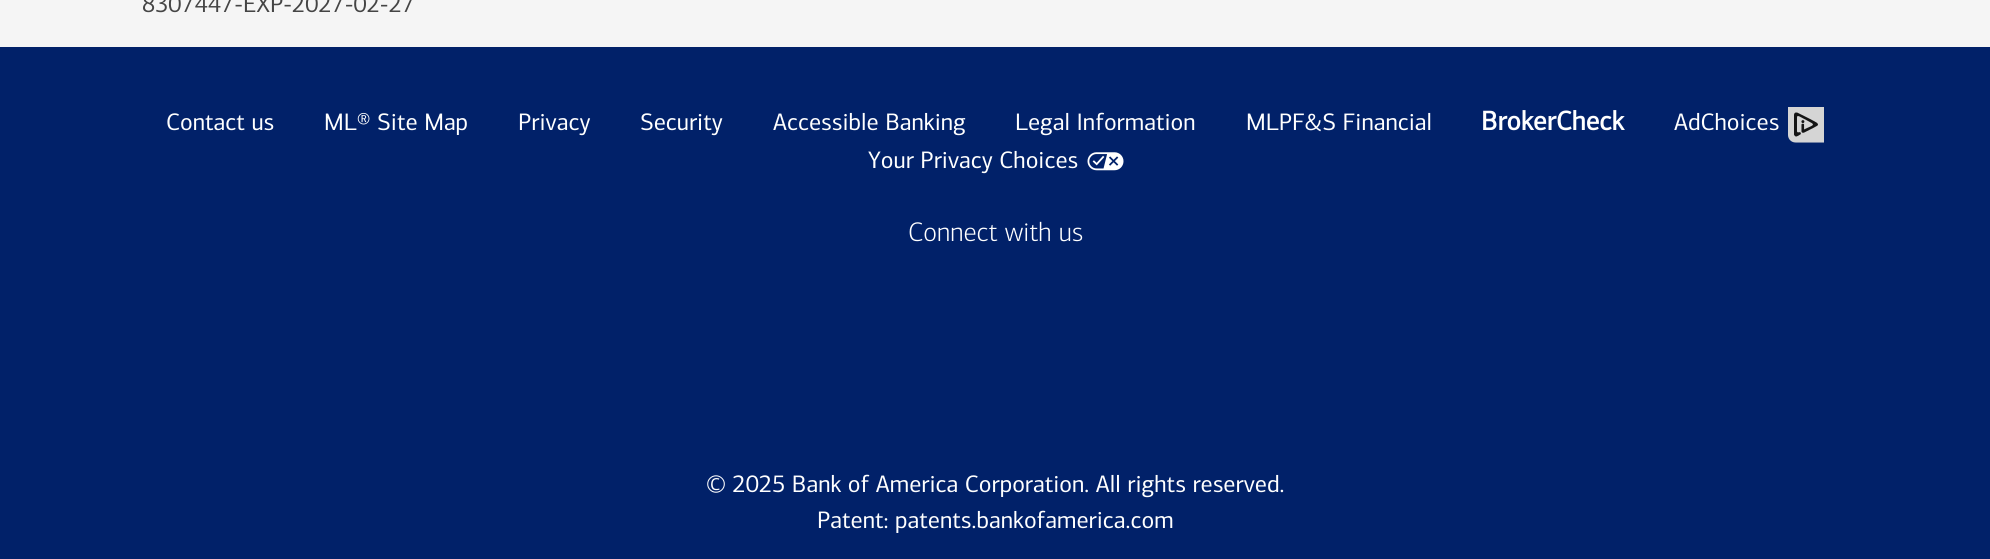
import math
import cairo



def draw_image(context, path, x, y, w, h):
    context.save()
    context.set_source_surface(cairo.ImageSurface.create_from_png(path), x, y)
    context.rectangle(x, y, w, h)
    context.fill()
    context.restore()


def draw(context):
    context.set_source_rgb(245 / 255, 245 / 255, 245 / 255)
    context.paint()
    context.set_source_rgb(1 / 255, 33 / 255, 105 / 255)
    context.rectangle(0, 47, 1990, 512)
    context.fill()
    draw_image(context, "images/1.png", 1788, 107, 36, 36)
    draw_image(context, "images/2.png", 1087, 152, 37, 19)
    context.select_font_face("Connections")
    context.set_font_size(24)
    context.set_source_rgb(69 / 255, 69 / 255, 69 / 255)
    context.move_to(142, 12)
    context.show_text("8307447-EXP-2027-02-27")
    context.set_source_rgb(1, 1, 1)
    context.move_to(166, 130)
    context.show_text("Contact us")
    context.move_to(324, 130)
    context.show_text("ML® Site Map")
    context.move_to(518, 130)
    context.show_text("Privacy")
    context.move_to(640, 130)
    context.show_text("Security")
    context.move_to(773, 130)
    context.show_text("Accessible Banking")
    context.move_to(1015, 130)
    context.show_text("Legal Information")
    context.move_to(1246, 130)
    context.show_text("MLPF&S Financial")
    context.select_font_face("Connections", cairo.FontSlant.NORMAL, cairo.FontWeight.BOLD)
    context.set_font_size(27)
    context.move_to(1481, 130)
    context.show_text("BrokerCheck")
    context.select_font_face("Connections")
    context.set_font_size(24)
    context.move_to(1674, 130)
    context.show_text("AdChoices")
    context.move_to(868, 168)
    context.show_text("Your Privacy Choices")
    context.select_font_face("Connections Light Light")
    context.set_font_size(27)
    context.move_to(908, 241)
    context.show_text("Connect with us")
    context.select_font_face("Connections")
    context.set_font_size(24)
    context.move_to(706, 492)
    context.show_text("© 2025 Bank of America Corporation. All rights reserved.")
    context.move_to(817, 528)
    context.show_text("Patent: patents.bankofamerica.com")


surface = cairo.ImageSurface(cairo.Format.RGB24, 1990, 559)
context = cairo.Context(surface)
options = cairo.FontOptions()
options.set_hint_metrics(cairo.HintMetrics.OFF)
options.set_hint_style(cairo.HintStyle.NONE)
context.set_font_options(options)
context.set_miter_limit(4)
draw(context)
surface.write_to_png("out.png")
